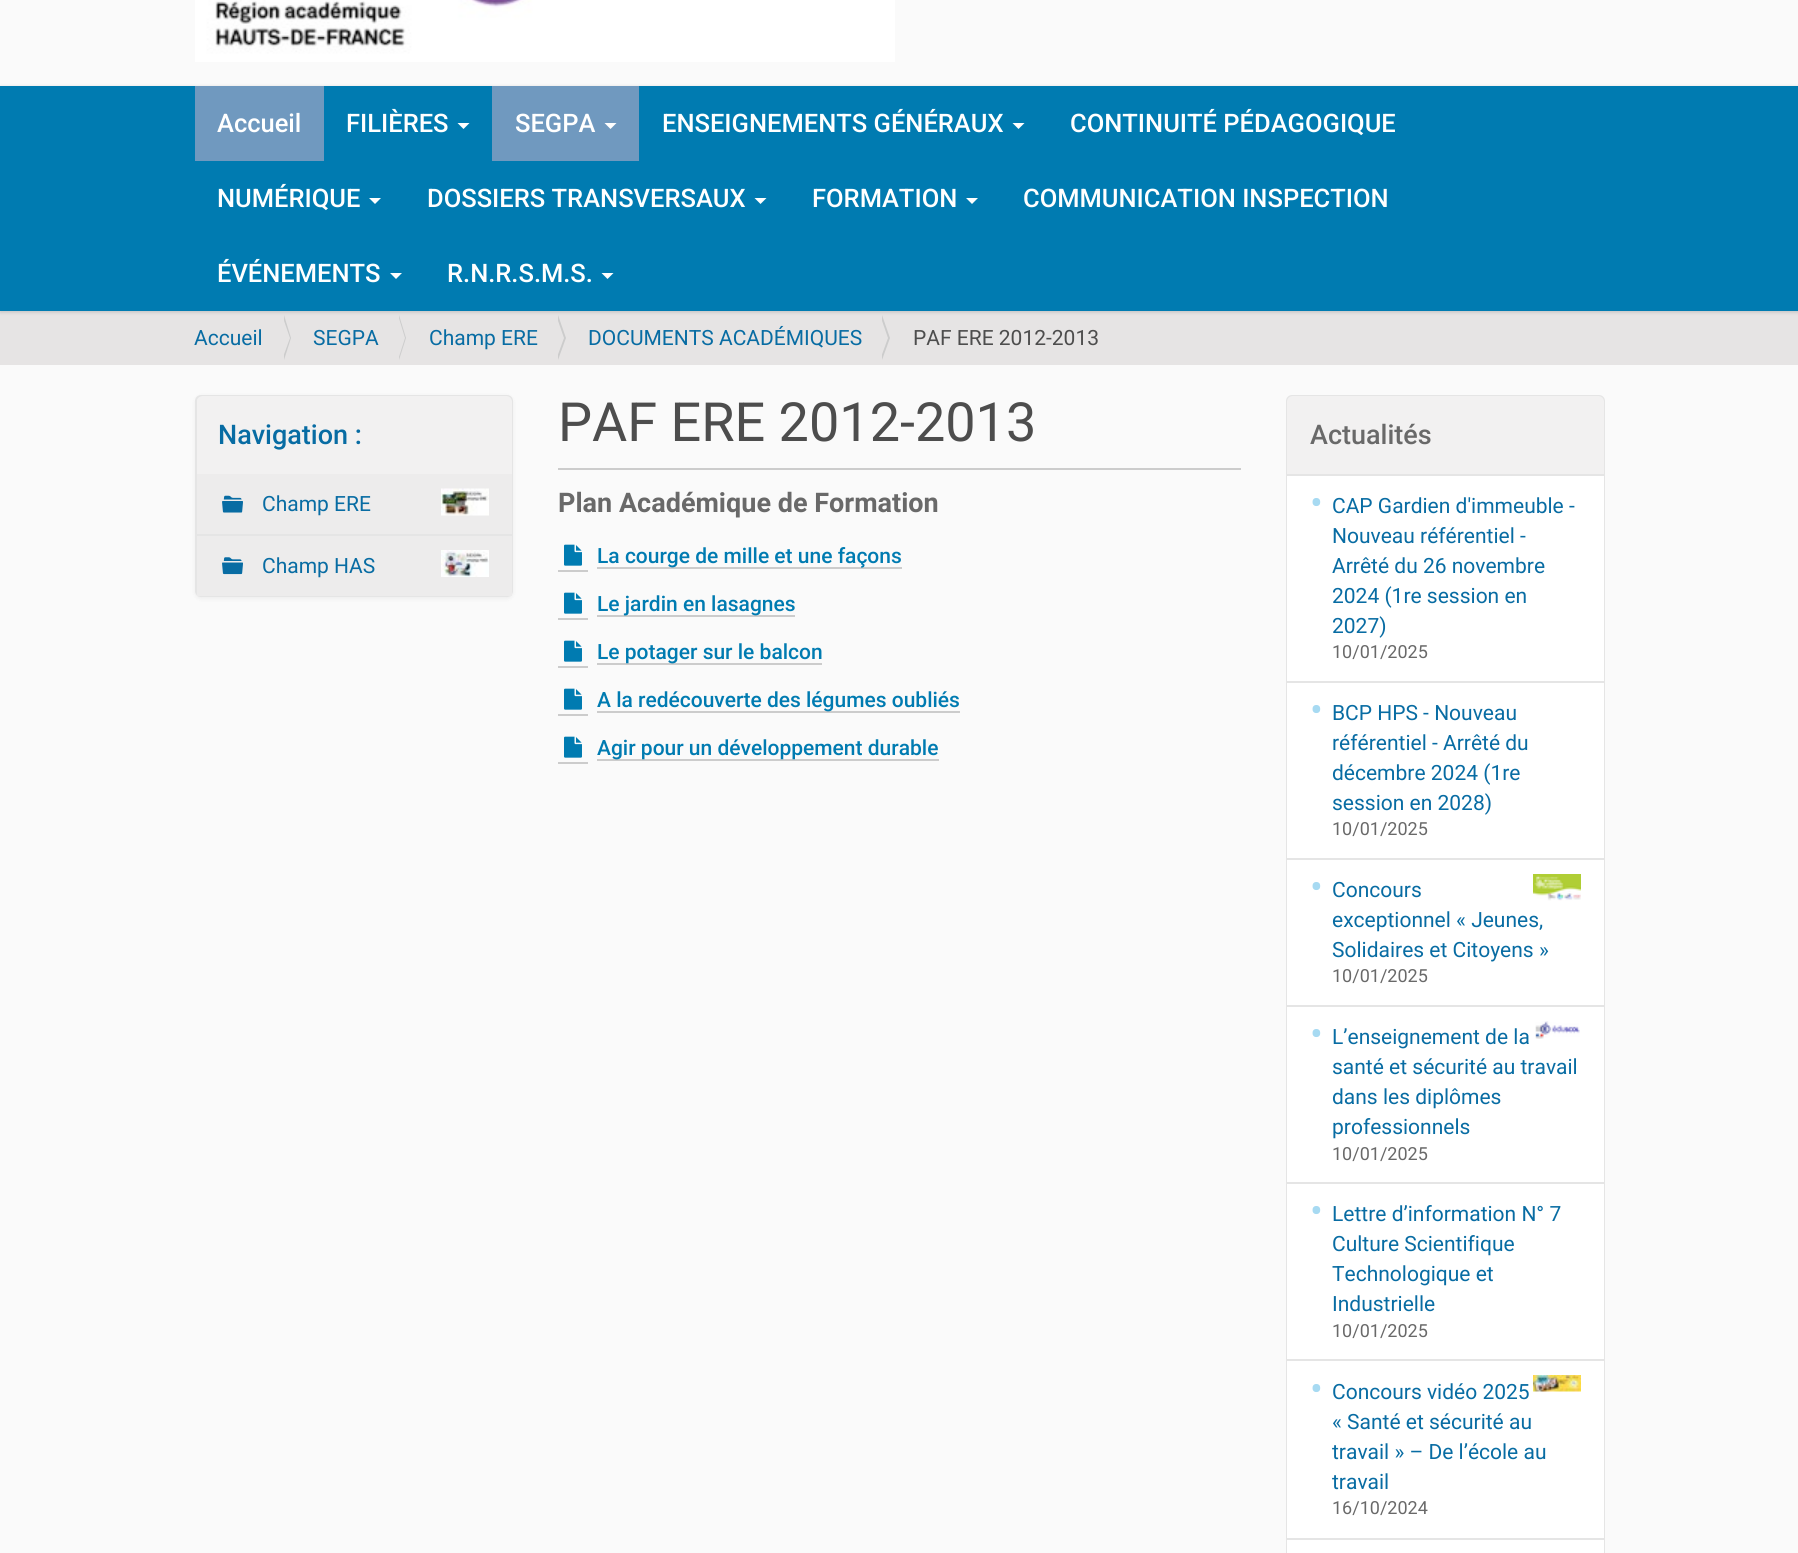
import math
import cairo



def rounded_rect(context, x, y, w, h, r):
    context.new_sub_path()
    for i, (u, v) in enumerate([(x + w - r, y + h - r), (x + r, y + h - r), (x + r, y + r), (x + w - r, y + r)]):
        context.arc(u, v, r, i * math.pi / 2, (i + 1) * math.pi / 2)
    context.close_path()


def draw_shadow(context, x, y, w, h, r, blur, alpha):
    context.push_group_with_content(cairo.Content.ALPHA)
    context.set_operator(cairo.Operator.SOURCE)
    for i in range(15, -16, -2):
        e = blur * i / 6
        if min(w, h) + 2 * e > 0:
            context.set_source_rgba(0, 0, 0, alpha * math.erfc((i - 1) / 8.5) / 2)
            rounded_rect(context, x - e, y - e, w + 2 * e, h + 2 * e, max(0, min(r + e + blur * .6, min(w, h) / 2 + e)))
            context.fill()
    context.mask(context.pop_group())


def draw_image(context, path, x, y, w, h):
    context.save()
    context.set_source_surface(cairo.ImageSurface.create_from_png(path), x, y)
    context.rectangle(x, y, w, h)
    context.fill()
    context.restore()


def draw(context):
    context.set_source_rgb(250 / 255, 250 / 255, 250 / 255)
    context.paint()
    draw_image(context, "images/1.png", 195, 0, 700, 62)
    context.set_source_rgb(230 / 255, 228 / 255, 228 / 255)
    context.rectangle(0, 311, 1798, 54)
    context.fill()
    context.set_source_rgb(0, 0, 0)
    draw_shadow(context, 0, 87, 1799, 225, 0, 2, 0.17)
    context.set_source_rgb(0, 123 / 255, 177 / 255)
    context.rectangle(0, 86, 1798, 225)
    context.fill()
    context.set_source_rgb(112 / 255, 153 / 255, 191 / 255)
    context.rectangle(195, 86, 129, 75)
    context.fill()
    context.set_source_rgb(1, 1, 1)
    context.new_path()
    context.move_to(457.5, 123)
    context.line_to(469.5, 123)
    context.line_to(463.5, 129)
    context.close_path()
    context.fill()
    context.set_source_rgb(112 / 255, 153 / 255, 191 / 255)
    context.rectangle(492, 86, 147, 75)
    context.fill()
    context.set_source_rgb(1, 1, 1)
    context.new_path()
    context.move_to(604.5, 123)
    context.line_to(616.5, 123)
    context.line_to(610.5, 129)
    context.close_path()
    context.fill()
    context.new_path()
    context.move_to(1012.5, 123)
    context.line_to(1024.5, 123)
    context.line_to(1018.5, 129)
    context.close_path()
    context.fill()
    context.new_path()
    context.move_to(369, 198)
    context.line_to(381, 198)
    context.line_to(375, 204)
    context.close_path()
    context.fill()
    context.new_path()
    context.move_to(754.5, 198)
    context.line_to(766.5, 198)
    context.line_to(760.5, 204)
    context.close_path()
    context.fill()
    context.new_path()
    context.move_to(966, 198)
    context.line_to(978, 198)
    context.line_to(972, 204)
    context.close_path()
    context.fill()
    context.new_path()
    context.move_to(390, 273)
    context.line_to(402, 273)
    context.line_to(396, 279)
    context.close_path()
    context.fill()
    context.new_path()
    context.move_to(601.5, 273)
    context.line_to(613.5, 273)
    context.line_to(607.5, 279)
    context.close_path()
    context.fill()
    context.set_source_rgb(204 / 255, 204 / 255, 204 / 255)
    context.new_path()
    context.move_to(284, 360)
    context.line_to(284, 315)
    context.line_to(291, 338)
    context.close_path()
    context.fill()
    context.set_source_rgb(230 / 255, 228 / 255, 228 / 255)
    context.new_path()
    context.move_to(282, 360)
    context.line_to(282, 315)
    context.line_to(290, 338)
    context.close_path()
    context.fill()
    context.set_source_rgb(204 / 255, 204 / 255, 204 / 255)
    context.new_path()
    context.move_to(399, 360)
    context.line_to(399, 315)
    context.line_to(406, 338)
    context.close_path()
    context.fill()
    context.set_source_rgb(230 / 255, 228 / 255, 228 / 255)
    context.new_path()
    context.move_to(398, 360)
    context.line_to(398, 315)
    context.line_to(405, 338)
    context.close_path()
    context.fill()
    context.set_source_rgb(204 / 255, 204 / 255, 204 / 255)
    context.new_path()
    context.move_to(558, 360)
    context.line_to(558, 315)
    context.line_to(566, 338)
    context.close_path()
    context.fill()
    context.set_source_rgb(230 / 255, 228 / 255, 228 / 255)
    context.new_path()
    context.move_to(556, 360)
    context.line_to(556, 315)
    context.line_to(564, 338)
    context.close_path()
    context.fill()
    context.set_source_rgb(204 / 255, 204 / 255, 204 / 255)
    context.new_path()
    context.move_to(882, 360)
    context.line_to(882, 315)
    context.line_to(890, 338)
    context.close_path()
    context.fill()
    context.set_source_rgb(230 / 255, 228 / 255, 228 / 255)
    context.new_path()
    context.move_to(880, 360)
    context.line_to(880, 315)
    context.line_to(888, 338)
    context.close_path()
    context.fill()
    context.set_source_rgb(0, 0, 0)
    draw_shadow(context, 195, 396, 318, 203, 6, 2, 0.05)
    rounded_rect(context, 196, 396, 316, 200, 5)
    context.set_source_rgb(229 / 255, 229 / 255, 229 / 255)
    context.stroke()
    context.set_source_rgb(242 / 255, 241 / 255, 241 / 255)
    context.new_path()
    context.move_to(203, 396)
    context.line_to(506, 396)
    context.curve_to(509.5, 396, 512, 398.5, 512, 402)
    context.line_to(512, 474)
    context.line_to(197, 474)
    context.line_to(197, 402)
    context.curve_to(197, 398.5, 199.5, 396, 203, 396)
    context.close_path()
    context.fill()
    context.set_source_rgb(237 / 255, 236 / 255, 236 / 255)
    context.rectangle(197, 474, 315, 60)
    context.fill()
    draw_image(context, "images/2.png", 222, 495, 21, 18)
    draw_image(context, "images/3.png", 441, 488, 48, 28)
    context.rectangle(197, 536, 315, 60)
    context.fill()
    context.set_source_rgb(229 / 255, 229 / 255, 229 / 255)
    context.rectangle(197, 534, 315, 2)
    context.fill()
    draw_image(context, "images/4.png", 222, 557, 21, 18)
    draw_image(context, "images/5.png", 441, 550, 48, 27)
    context.set_source_rgb(204 / 255, 204 / 255, 204 / 255)
    context.rectangle(558, 468, 683, 2)
    context.fill()
    context.rectangle(558, 570, 30, 2)
    context.fill()
    context.rectangle(597, 567, 305, 2)
    context.fill()
    draw_image(context, "images/6.png", 564, 544, 18, 22)
    context.rectangle(558, 618, 30, 2)
    context.fill()
    context.rectangle(597, 615, 198, 2)
    context.fill()
    draw_image(context, "images/6.png", 564, 592, 18, 22)
    context.rectangle(558, 666, 30, 2)
    context.fill()
    context.rectangle(597, 663, 225, 2)
    context.fill()
    draw_image(context, "images/6.png", 564, 640, 18, 22)
    context.rectangle(558, 714, 30, 2)
    context.fill()
    context.rectangle(597, 711, 363, 2)
    context.fill()
    draw_image(context, "images/6.png", 564, 688, 18, 22)
    context.rectangle(558, 762, 30, 2)
    context.fill()
    context.rectangle(597, 759, 342, 2)
    context.fill()
    draw_image(context, "images/6.png", 564, 736, 18, 22)
    rounded_rect(context, 1287, 396, 317, 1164, 5)
    context.set_source_rgb(229 / 255, 229 / 255, 229 / 255)
    context.stroke()
    context.set_source_rgb(242 / 255, 241 / 255, 241 / 255)
    context.new_path()
    context.move_to(1293, 396)
    context.line_to(1598, 396)
    context.curve_to(1601.5, 396, 1604, 398.5, 1604, 402)
    context.line_to(1604, 474)
    context.line_to(1287, 474)
    context.line_to(1287, 402)
    context.curve_to(1287, 398.5, 1289.5, 396, 1293, 396)
    context.close_path()
    context.fill()
    context.set_source_rgb(1, 1, 1)
    context.rectangle(1287, 476, 317, 1077)
    context.fill()
    context.set_source_rgb(229 / 255, 229 / 255, 229 / 255)
    context.rectangle(1287, 474, 317, 2)
    context.fill()
    context.rectangle(1287, 681, 317, 2)
    context.fill()
    context.rectangle(1287, 858, 317, 2)
    context.fill()
    draw_image(context, "images/7.png", 1533, 874, 48, 27)
    context.rectangle(1287, 1005, 317, 2)
    context.fill()
    draw_image(context, "images/8.png", 1535, 1021, 45, 18)
    context.rectangle(1287, 1182, 317, 2)
    context.fill()
    context.rectangle(1287, 1359, 317, 2)
    context.fill()
    draw_image(context, "images/9.png", 1533, 1375, 48, 17)
    context.rectangle(1287, 1538, 317, 2)
    context.fill()
    context.select_font_face("Roboto Medium")
    context.set_font_size(25.5)
    context.set_source_rgb(1, 1, 1)
    context.move_to(217, 132)
    context.show_text("Accueil")
    context.move_to(346, 132)
    context.show_text("FILIÈRES")
    context.move_to(515, 132)
    context.show_text("SEGPA")
    context.move_to(662, 132)
    context.show_text("ENSEIGNEMENTS GÉNÉRAUX")
    context.move_to(1070, 132)
    context.show_text("CONTINUITÉ PÉDAGOGIQUE")
    context.move_to(217, 207)
    context.show_text("NUMÉRIQUE")
    context.move_to(427, 207)
    context.show_text("DOSSIERS TRANSVERSAUX")
    context.move_to(812, 207)
    context.show_text("FORMATION")
    context.move_to(1023, 207)
    context.show_text("COMMUNICATION INSPECTION")
    context.move_to(217, 282)
    context.show_text("ÉVÉNEMENTS")
    context.move_to(447, 282)
    context.show_text("R.N.R.S.M.S.")
    context.select_font_face("Roboto")
    context.set_font_size(21)
    context.set_source_rgb(8 / 255, 108 / 255, 163 / 255)
    context.move_to(194, 345)
    context.show_text("Accueil")
    context.move_to(313, 345)
    context.show_text("SEGPA")
    context.move_to(429, 345)
    context.show_text("Champ ERE")
    context.move_to(588, 345)
    context.show_text("DOCUMENTS ACADÉMIQUES")
    context.set_source_rgb(77 / 255, 77 / 255, 77 / 255)
    context.move_to(913, 345)
    context.show_text("PAF ERE 2012-2013")
    context.select_font_face("Roboto Medium")
    context.set_font_size(27)
    context.set_source_rgb(8 / 255, 108 / 255, 163 / 255)
    context.move_to(218, 444)
    context.show_text("Navigation :")
    context.select_font_face("Roboto")
    context.set_font_size(21)
    context.move_to(262, 511)
    context.show_text("Champ ERE")
    context.move_to(262, 573)
    context.show_text("Champ HAS")
    context.set_font_size(54)
    context.set_source_rgb(77 / 255, 77 / 255, 77 / 255)
    context.move_to(558, 441)
    context.show_text("PAF ERE 2012-2013")
    context.select_font_face("Roboto", cairo.FontSlant.NORMAL, cairo.FontWeight.BOLD)
    context.set_font_size(27)
    context.set_source_rgb(105 / 255, 105 / 255, 105 / 255)
    context.move_to(558, 512)
    context.show_text("Plan Académique de Formation")
    context.select_font_face("Roboto Medium")
    context.set_font_size(21)
    context.set_source_rgb(0, 123 / 255, 177 / 255)
    context.move_to(597, 563)
    context.show_text("La courge de mille et une façons")
    context.move_to(597, 611)
    context.show_text("Le jardin en lasagnes")
    context.move_to(597, 659)
    context.show_text("Le potager sur le balcon")
    context.move_to(597, 707)
    context.show_text("A la redécouverte des légumes oubliés")
    context.move_to(597, 755)
    context.show_text("Agir pour un développement durable")
    context.set_font_size(27)
    context.set_source_rgb(105 / 255, 105 / 255, 105 / 255)
    context.move_to(1310, 444)
    context.show_text("Actualités")
    context.select_font_face("Roboto")
    context.set_font_size(38)
    context.set_source_rgb(167 / 255, 218 / 255, 242 / 255)
    context.move_to(1310, 516)
    context.show_text("•")
    context.set_font_size(21)
    context.set_source_rgb(8 / 255, 108 / 255, 163 / 255)
    context.move_to(1332, 513)
    context.show_text("CAP Gardien d'immeuble -")
    context.move_to(1332, 543)
    context.show_text("Nouveau référentiel -")
    context.move_to(1332, 573)
    context.show_text("Arrêté du 26 novembre")
    context.move_to(1332, 603)
    context.show_text("2024 (1re session en")
    context.move_to(1332, 633)
    context.show_text("2027)")
    context.set_font_size(18)
    context.set_source_rgb(105 / 255, 105 / 255, 105 / 255)
    context.move_to(1332, 658)
    context.show_text("10/01/2025")
    context.set_font_size(38)
    context.set_source_rgb(167 / 255, 218 / 255, 242 / 255)
    context.move_to(1310, 723)
    context.show_text("•")
    context.set_font_size(21)
    context.set_source_rgb(8 / 255, 108 / 255, 163 / 255)
    context.move_to(1332, 720)
    context.show_text("BCP HPS - Nouveau")
    context.move_to(1332, 750)
    context.show_text("référentiel - Arrêté du")
    context.move_to(1332, 780)
    context.show_text("décembre 2024 (1re")
    context.move_to(1332, 810)
    context.show_text("session en 2028)")
    context.set_font_size(18)
    context.set_source_rgb(105 / 255, 105 / 255, 105 / 255)
    context.move_to(1332, 835)
    context.show_text("10/01/2025")
    context.set_font_size(38)
    context.set_source_rgb(167 / 255, 218 / 255, 242 / 255)
    context.move_to(1310, 900)
    context.show_text("•")
    context.set_font_size(21)
    context.set_source_rgb(8 / 255, 108 / 255, 163 / 255)
    context.move_to(1332, 897)
    context.show_text("Concours")
    context.move_to(1332, 927)
    context.show_text("exceptionnel « Jeunes,")
    context.move_to(1332, 957)
    context.show_text("Solidaires et Citoyens »")
    context.set_font_size(18)
    context.set_source_rgb(105 / 255, 105 / 255, 105 / 255)
    context.move_to(1332, 982)
    context.show_text("10/01/2025")
    context.set_font_size(38)
    context.set_source_rgb(167 / 255, 218 / 255, 242 / 255)
    context.move_to(1310, 1047)
    context.show_text("•")
    context.set_font_size(21)
    context.set_source_rgb(8 / 255, 108 / 255, 163 / 255)
    context.move_to(1332, 1044)
    context.show_text("L’enseignement de la")
    context.move_to(1332, 1074)
    context.show_text("santé et sécurité au travail")
    context.move_to(1332, 1104)
    context.show_text("dans les diplômes")
    context.move_to(1332, 1134)
    context.show_text("professionnels")
    context.set_font_size(18)
    context.set_source_rgb(105 / 255, 105 / 255, 105 / 255)
    context.move_to(1332, 1160)
    context.show_text("10/01/2025")
    context.set_font_size(38)
    context.set_source_rgb(167 / 255, 218 / 255, 242 / 255)
    context.move_to(1310, 1224)
    context.show_text("•")
    context.set_font_size(21)
    context.set_source_rgb(8 / 255, 108 / 255, 163 / 255)
    context.move_to(1332, 1221)
    context.show_text("Lettre d’information N° 7")
    context.move_to(1332, 1251)
    context.show_text("Culture Scientifique")
    context.move_to(1332, 1281)
    context.show_text("Technologique et")
    context.move_to(1332, 1311)
    context.show_text("Industrielle")
    context.set_font_size(18)
    context.set_source_rgb(105 / 255, 105 / 255, 105 / 255)
    context.move_to(1332, 1337)
    context.show_text("10/01/2025")
    context.set_font_size(38)
    context.set_source_rgb(167 / 255, 218 / 255, 242 / 255)
    context.move_to(1310, 1402)
    context.show_text("•")
    context.set_font_size(21)
    context.set_source_rgb(8 / 255, 108 / 255, 163 / 255)
    context.move_to(1332, 1399)
    context.show_text("Concours vidéo 2025")
    context.move_to(1332, 1429)
    context.show_text("« Santé et sécurité au")
    context.move_to(1332, 1459)
    context.show_text("travail » – De l’école au")
    context.move_to(1332, 1489)
    context.show_text("travail")
    context.set_font_size(18)
    context.set_source_rgb(105 / 255, 105 / 255, 105 / 255)
    context.move_to(1332, 1514)
    context.show_text("16/10/2024")


surface = cairo.ImageSurface(cairo.Format.RGB24, 1798, 1553)
context = cairo.Context(surface)
options = cairo.FontOptions()
options.set_hint_metrics(cairo.HintMetrics.OFF)
options.set_hint_style(cairo.HintStyle.NONE)
context.set_font_options(options)
context.set_miter_limit(4)
draw(context)
surface.write_to_png("out.png")
